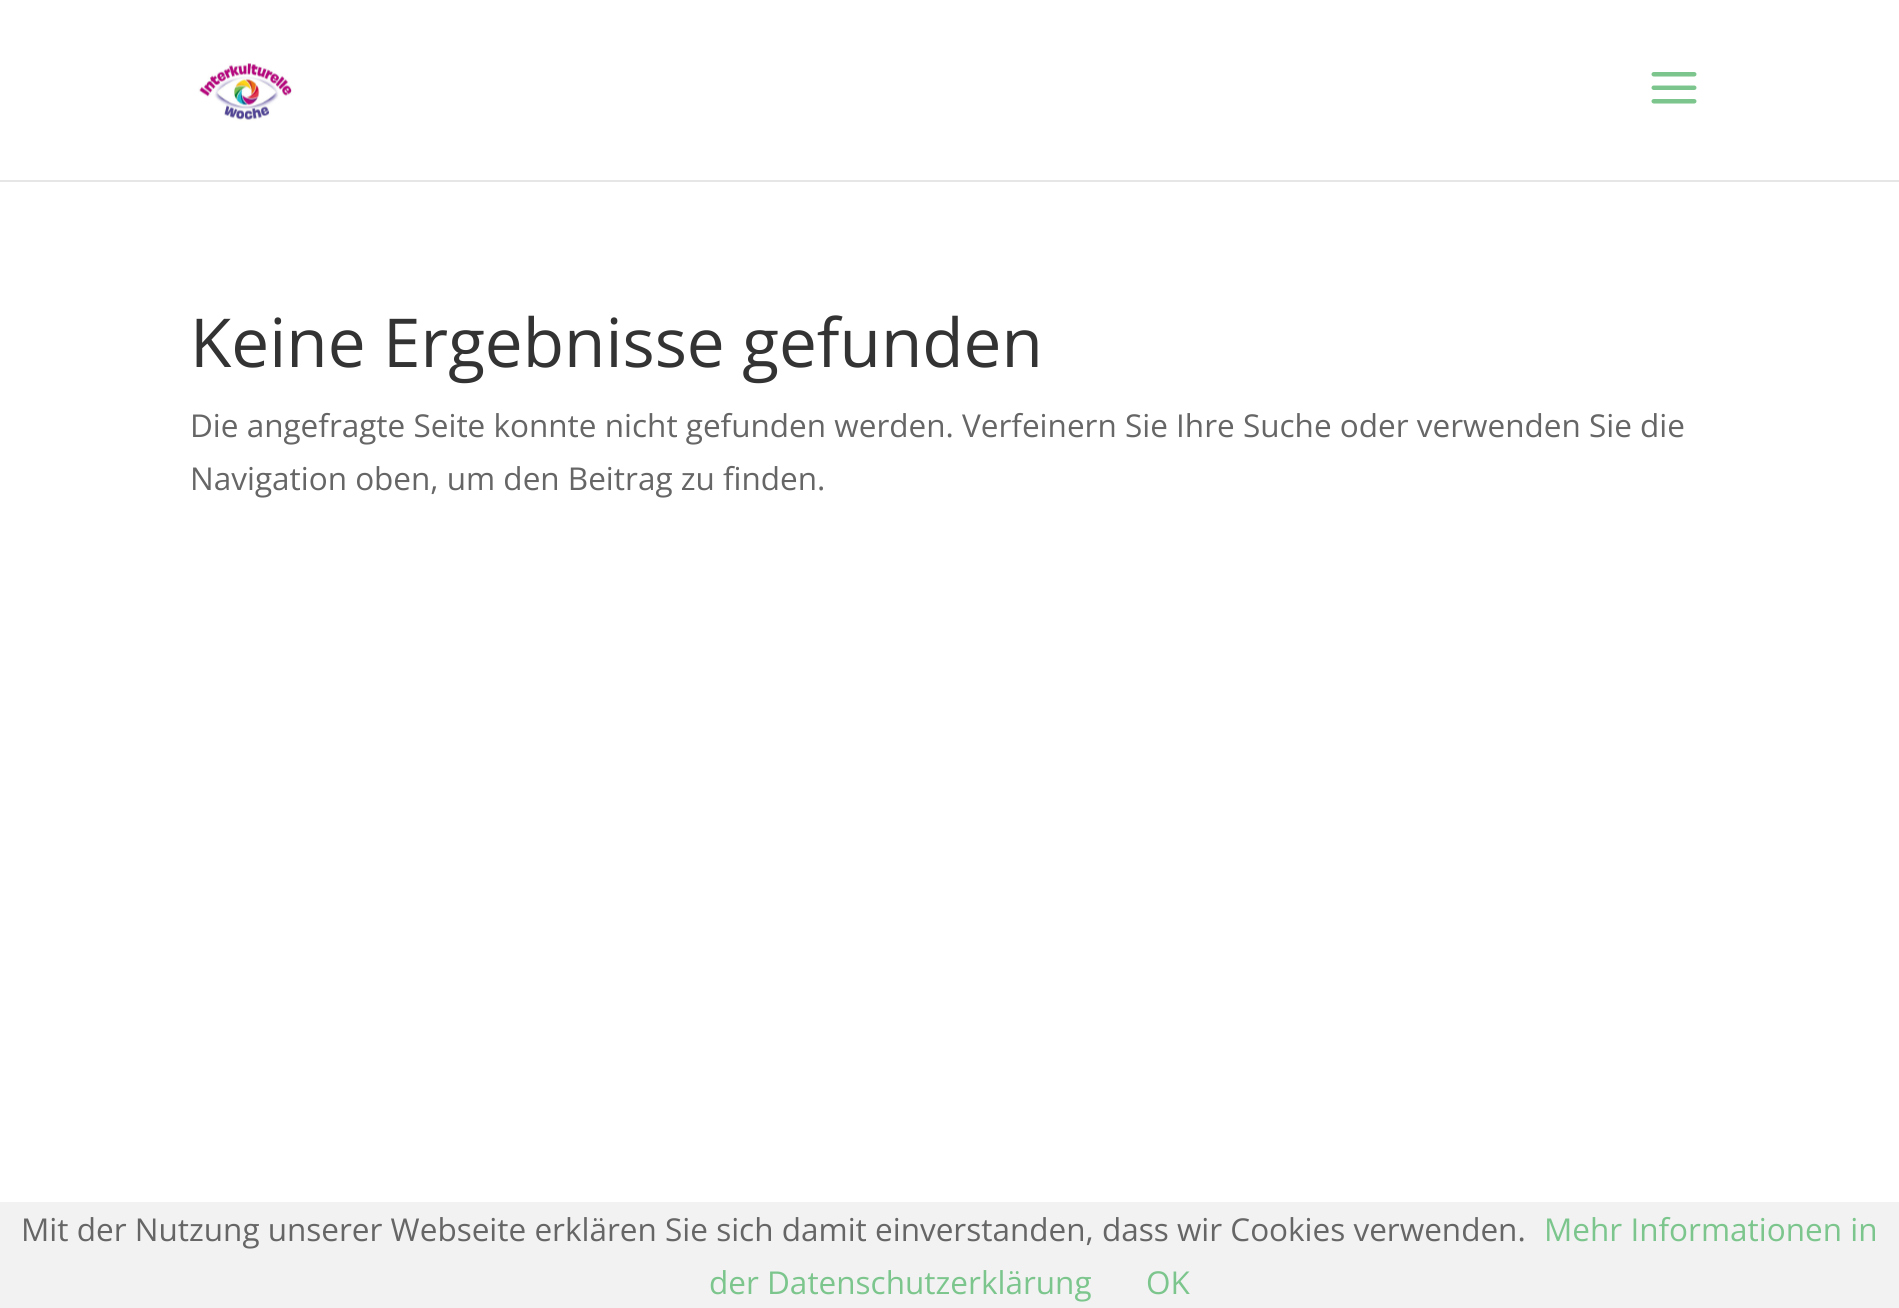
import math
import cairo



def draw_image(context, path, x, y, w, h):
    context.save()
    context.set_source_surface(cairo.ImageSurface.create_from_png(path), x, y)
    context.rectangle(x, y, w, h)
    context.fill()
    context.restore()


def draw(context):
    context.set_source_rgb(1, 1, 1)
    context.paint()
    context.set_source_rgb(230 / 255, 230 / 255, 230 / 255)
    context.rectangle(0, 180, 1899, 2)
    context.fill()
    draw_image(context, "images/1.png", 198, 63, 94, 58)
    draw_image(context, "images/2.png", 1651, 72, 46, 32)
    context.set_source_rgb(242 / 255, 242 / 255, 242 / 255)
    context.rectangle(0, 1202, 1899, 106)
    context.fill()
    context.select_font_face("Open Sans")
    context.set_font_size(67.5)
    context.set_source_rgb(51 / 255, 51 / 255, 51 / 255)
    context.move_to(190, 367)
    context.show_text("Keine Ergebnisse gefunden")
    context.set_font_size(31.5)
    context.set_source_rgb(102 / 255, 102 / 255, 102 / 255)
    context.move_to(190, 437)
    context.show_text("Die angefragte Seite konnte nicht gefunden werden. Verfeinern Sie Ihre Suche oder verwenden Sie die")
    context.move_to(190, 490)
    context.show_text("Navigation oben, um den Beitrag zu finden.")
    context.move_to(21, 1241)
    context.show_text("Mit der Nutzung unserer Webseite erklären Sie sich damit einverstanden, dass wir Cookies verwenden.")
    context.set_source_rgb(124 / 255, 198 / 255, 141 / 255)
    context.move_to(1544, 1241)
    context.show_text("Mehr Informationen in")
    context.move_to(709, 1294)
    context.show_text("der Datenschutzerklärung")
    context.move_to(1146, 1294)
    context.show_text("OK")


surface = cairo.ImageSurface(cairo.Format.RGB24, 1899, 1308)
context = cairo.Context(surface)
options = cairo.FontOptions()
options.set_hint_metrics(cairo.HintMetrics.OFF)
options.set_hint_style(cairo.HintStyle.NONE)
context.set_font_options(options)
context.set_miter_limit(4)
draw(context)
surface.write_to_png("out.png")
